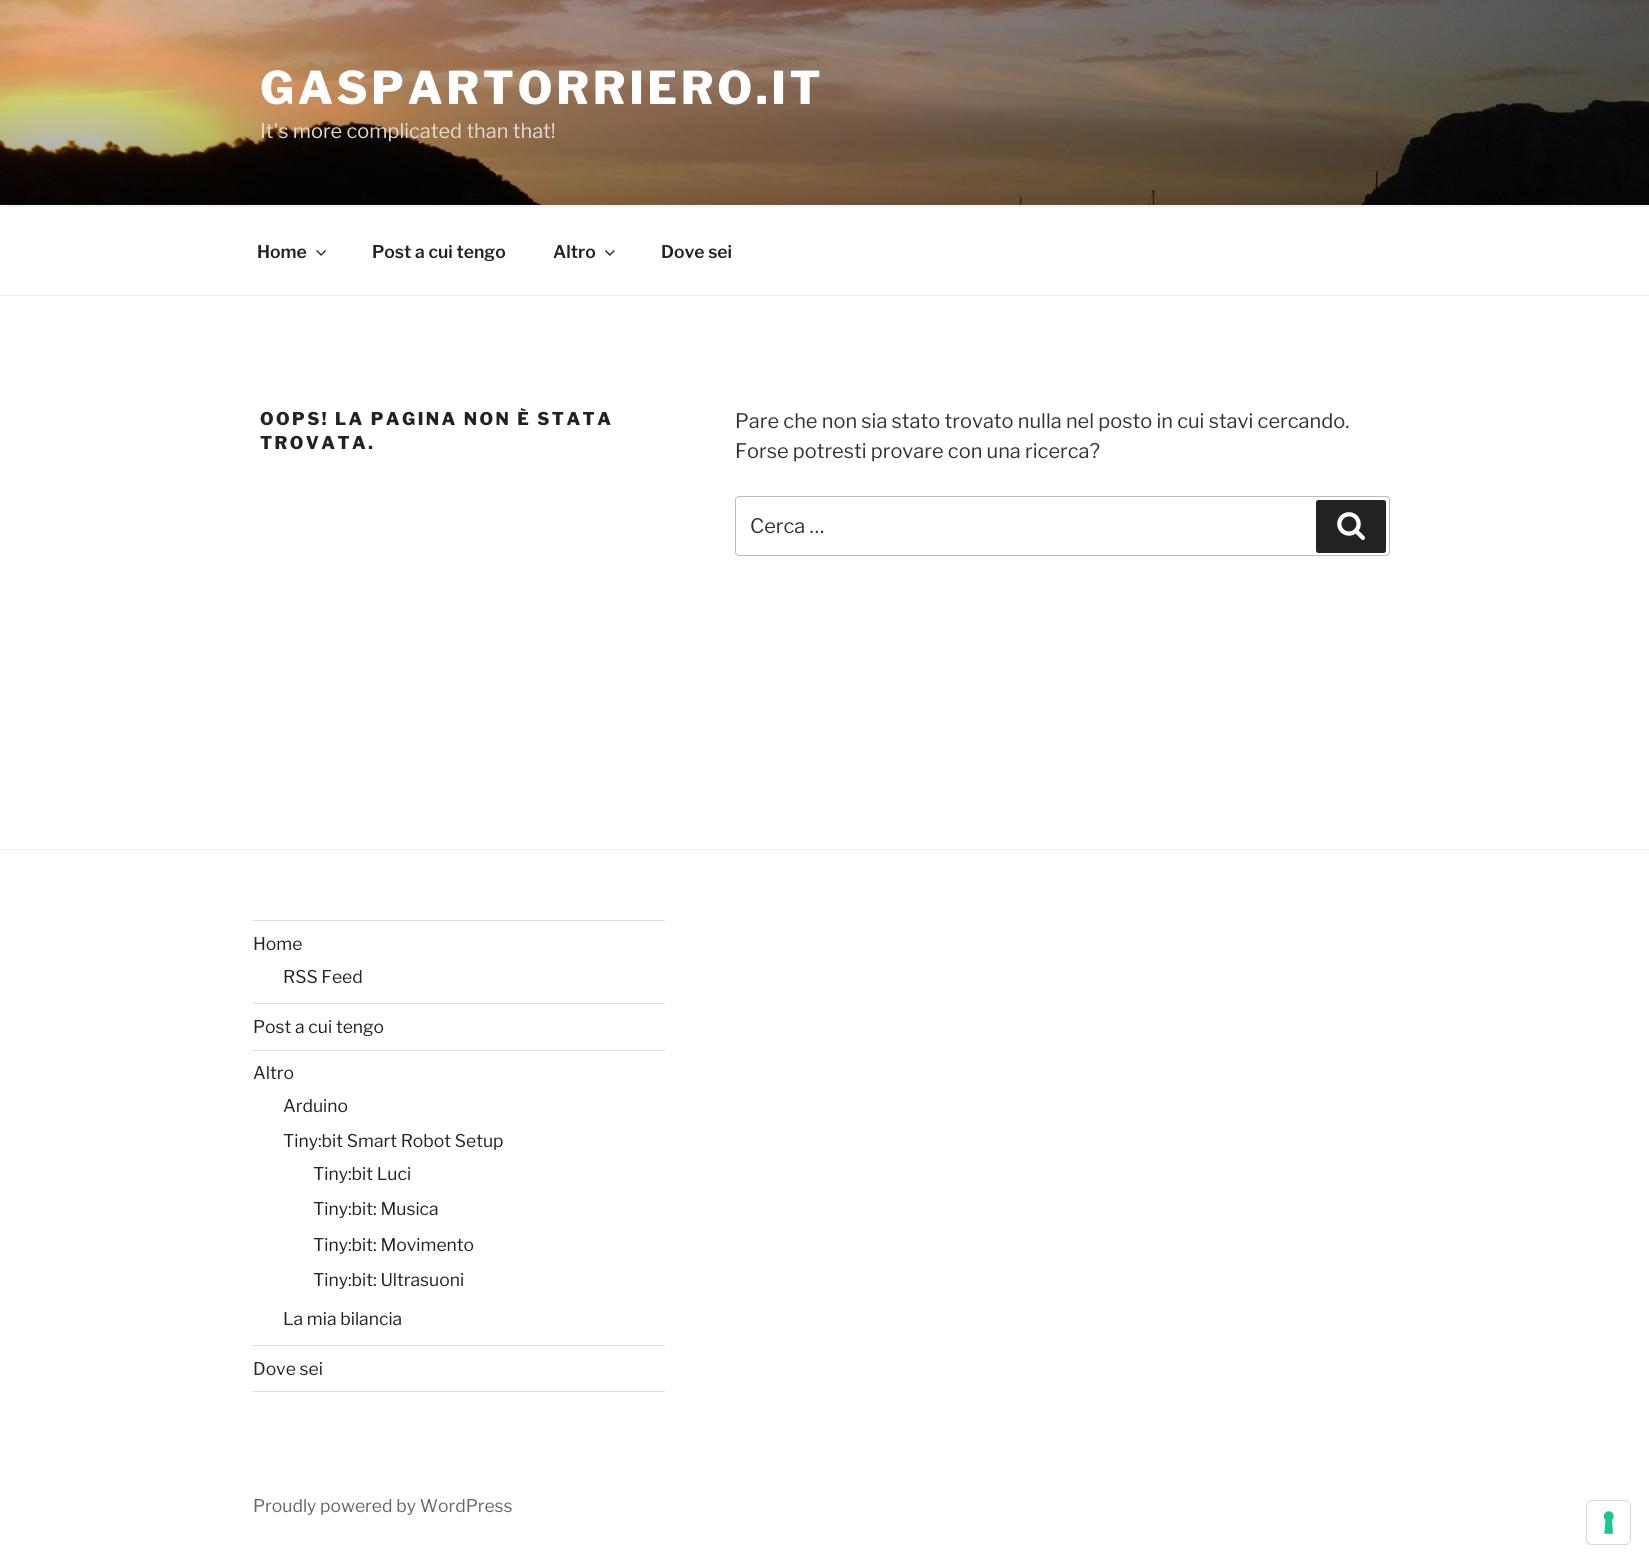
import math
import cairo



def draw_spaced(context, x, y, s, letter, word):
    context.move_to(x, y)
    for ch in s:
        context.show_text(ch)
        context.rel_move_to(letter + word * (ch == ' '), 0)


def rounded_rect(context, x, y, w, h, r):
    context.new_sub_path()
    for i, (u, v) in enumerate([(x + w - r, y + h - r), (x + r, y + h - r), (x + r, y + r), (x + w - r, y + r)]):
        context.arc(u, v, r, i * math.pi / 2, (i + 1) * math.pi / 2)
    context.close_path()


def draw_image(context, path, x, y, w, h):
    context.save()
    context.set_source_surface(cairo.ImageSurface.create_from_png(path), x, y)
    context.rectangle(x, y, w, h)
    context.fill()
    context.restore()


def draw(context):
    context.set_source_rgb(1, 1, 1)
    context.paint()
    context.set_source_rgb(250 / 255, 250 / 255, 250 / 255)
    context.rectangle(0, 205, 1649, 1)
    context.fill()
    draw_image(context, "images/1.png", 0, 0, 1649, 205)
    context.set_source_rgb(238 / 255, 238 / 255, 238 / 255)
    context.rectangle(0, 206, 1649, 1)
    context.fill()
    context.rectangle(0, 295, 1649, 1)
    context.fill()
    draw_image(context, "images/2.png", 316, 250, 10, 6)
    draw_image(context, "images/3.png", 605, 250, 10, 6)
    rounded_rect(context, 735.5, 496.5, 654, 59, 3.5)
    context.set_source_rgb(187 / 255, 187 / 255, 187 / 255)
    context.set_line_width(1)
    context.stroke()
    context.set_source_rgb(34 / 255, 34 / 255, 34 / 255)
    rounded_rect(context, 1316, 500, 70, 53, 2.5)
    context.fill()
    draw_image(context, "images/4.png", 1337, 512, 28, 28)
    context.set_source_rgb(238 / 255, 238 / 255, 238 / 255)
    context.rectangle(0, 849, 1649, 1)
    context.fill()
    context.set_source_rgb(221 / 255, 221 / 255, 221 / 255)
    context.rectangle(253, 920, 412, 1)
    context.fill()
    context.rectangle(253, 1003, 412, 1)
    context.fill()
    context.rectangle(253, 1050, 412, 1)
    context.fill()
    context.rectangle(253, 1345, 412, 1)
    context.fill()
    context.rectangle(253, 1391, 412, 1)
    context.fill()
    rounded_rect(context, 1586.5, 1500.5, 44, 44, 5.5)
    context.set_source_rgb(217 / 255, 217 / 255, 217 / 255)
    context.stroke()
    context.set_source_rgb(1, 1, 1)
    rounded_rect(context, 1588, 1501, 42, 43, 5)
    context.fill()
    draw_image(context, "images/5.png", 1603, 1511, 11, 23)
    context.select_font_face("Libre Franklin Thin")
    context.set_font_size(45)
    draw_spaced(context, 260, 104, "GASPARTORRIERO.IT", 3.6, 0)
    context.select_font_face("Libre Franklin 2 Thin")
    context.set_font_size(20)
    context.set_source_rgb(226 / 255, 220 / 255, 214 / 255)
    context.move_to(260, 138)
    context.show_text("It's more complicated than that!")
    context.select_font_face("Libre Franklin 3 Thin")
    context.set_font_size(17.5)
    context.set_source_rgb(34 / 255, 34 / 255, 34 / 255)
    context.move_to(257, 258)
    context.show_text("Home")
    context.move_to(372, 258)
    context.show_text("Post a cui tengo")
    context.move_to(553, 258)
    context.show_text("Altro")
    context.move_to(661, 258)
    context.show_text("Dove sei")
    context.select_font_face("Libre Franklin Thin")
    draw_spaced(context, 260, 425, "OOPS! LA PAGINA NON È STATA", 2.45, 0)
    draw_spaced(context, 260, 449, "TROVATA.", 2.45, 0)
    context.select_font_face("Libre Franklin 2 Thin")
    context.set_font_size(20)
    context.set_source_rgb(51 / 255, 51 / 255, 51 / 255)
    context.move_to(735, 428)
    context.show_text("Pare che non sia stato trovato nulla nel posto in cui stavi cercando.")
    context.move_to(735, 458)
    context.show_text("Forse potresti provare con una ricerca?")
    context.move_to(750, 533)
    context.show_text("Cerca …")
    context.set_font_size(17.5)
    context.set_source_rgb(34 / 255, 34 / 255, 34 / 255)
    context.move_to(253, 950)
    context.show_text("Home")
    context.move_to(283, 983)
    context.show_text("RSS Feed")
    context.move_to(253, 1033)
    context.show_text("Post a cui tengo")
    context.move_to(253, 1079)
    context.show_text("Altro")
    context.move_to(283, 1112)
    context.show_text("Arduino")
    context.move_to(283, 1147)
    context.show_text("Tiny:bit Smart Robot Setup")
    context.move_to(313, 1180)
    context.show_text("Tiny:bit Luci")
    context.move_to(313, 1215)
    context.show_text("Tiny:bit: Musica")
    context.move_to(313, 1251)
    context.show_text("Tiny:bit: Movimento")
    context.move_to(313, 1286)
    context.show_text("Tiny:bit: Ultrasuoni")
    context.move_to(283, 1325)
    context.show_text("La mia bilancia")
    context.move_to(253, 1375)
    context.show_text("Dove sei")
    context.set_source_rgb(102 / 255, 102 / 255, 102 / 255)
    context.move_to(253, 1512)
    context.show_text("Proudly powered by WordPress")


surface = cairo.ImageSurface(cairo.Format.RGB24, 1649, 1563)
context = cairo.Context(surface)
options = cairo.FontOptions()
options.set_hint_metrics(cairo.HintMetrics.OFF)
options.set_hint_style(cairo.HintStyle.NONE)
context.set_font_options(options)
context.set_miter_limit(4)
draw(context)
surface.write_to_png("out.png")
